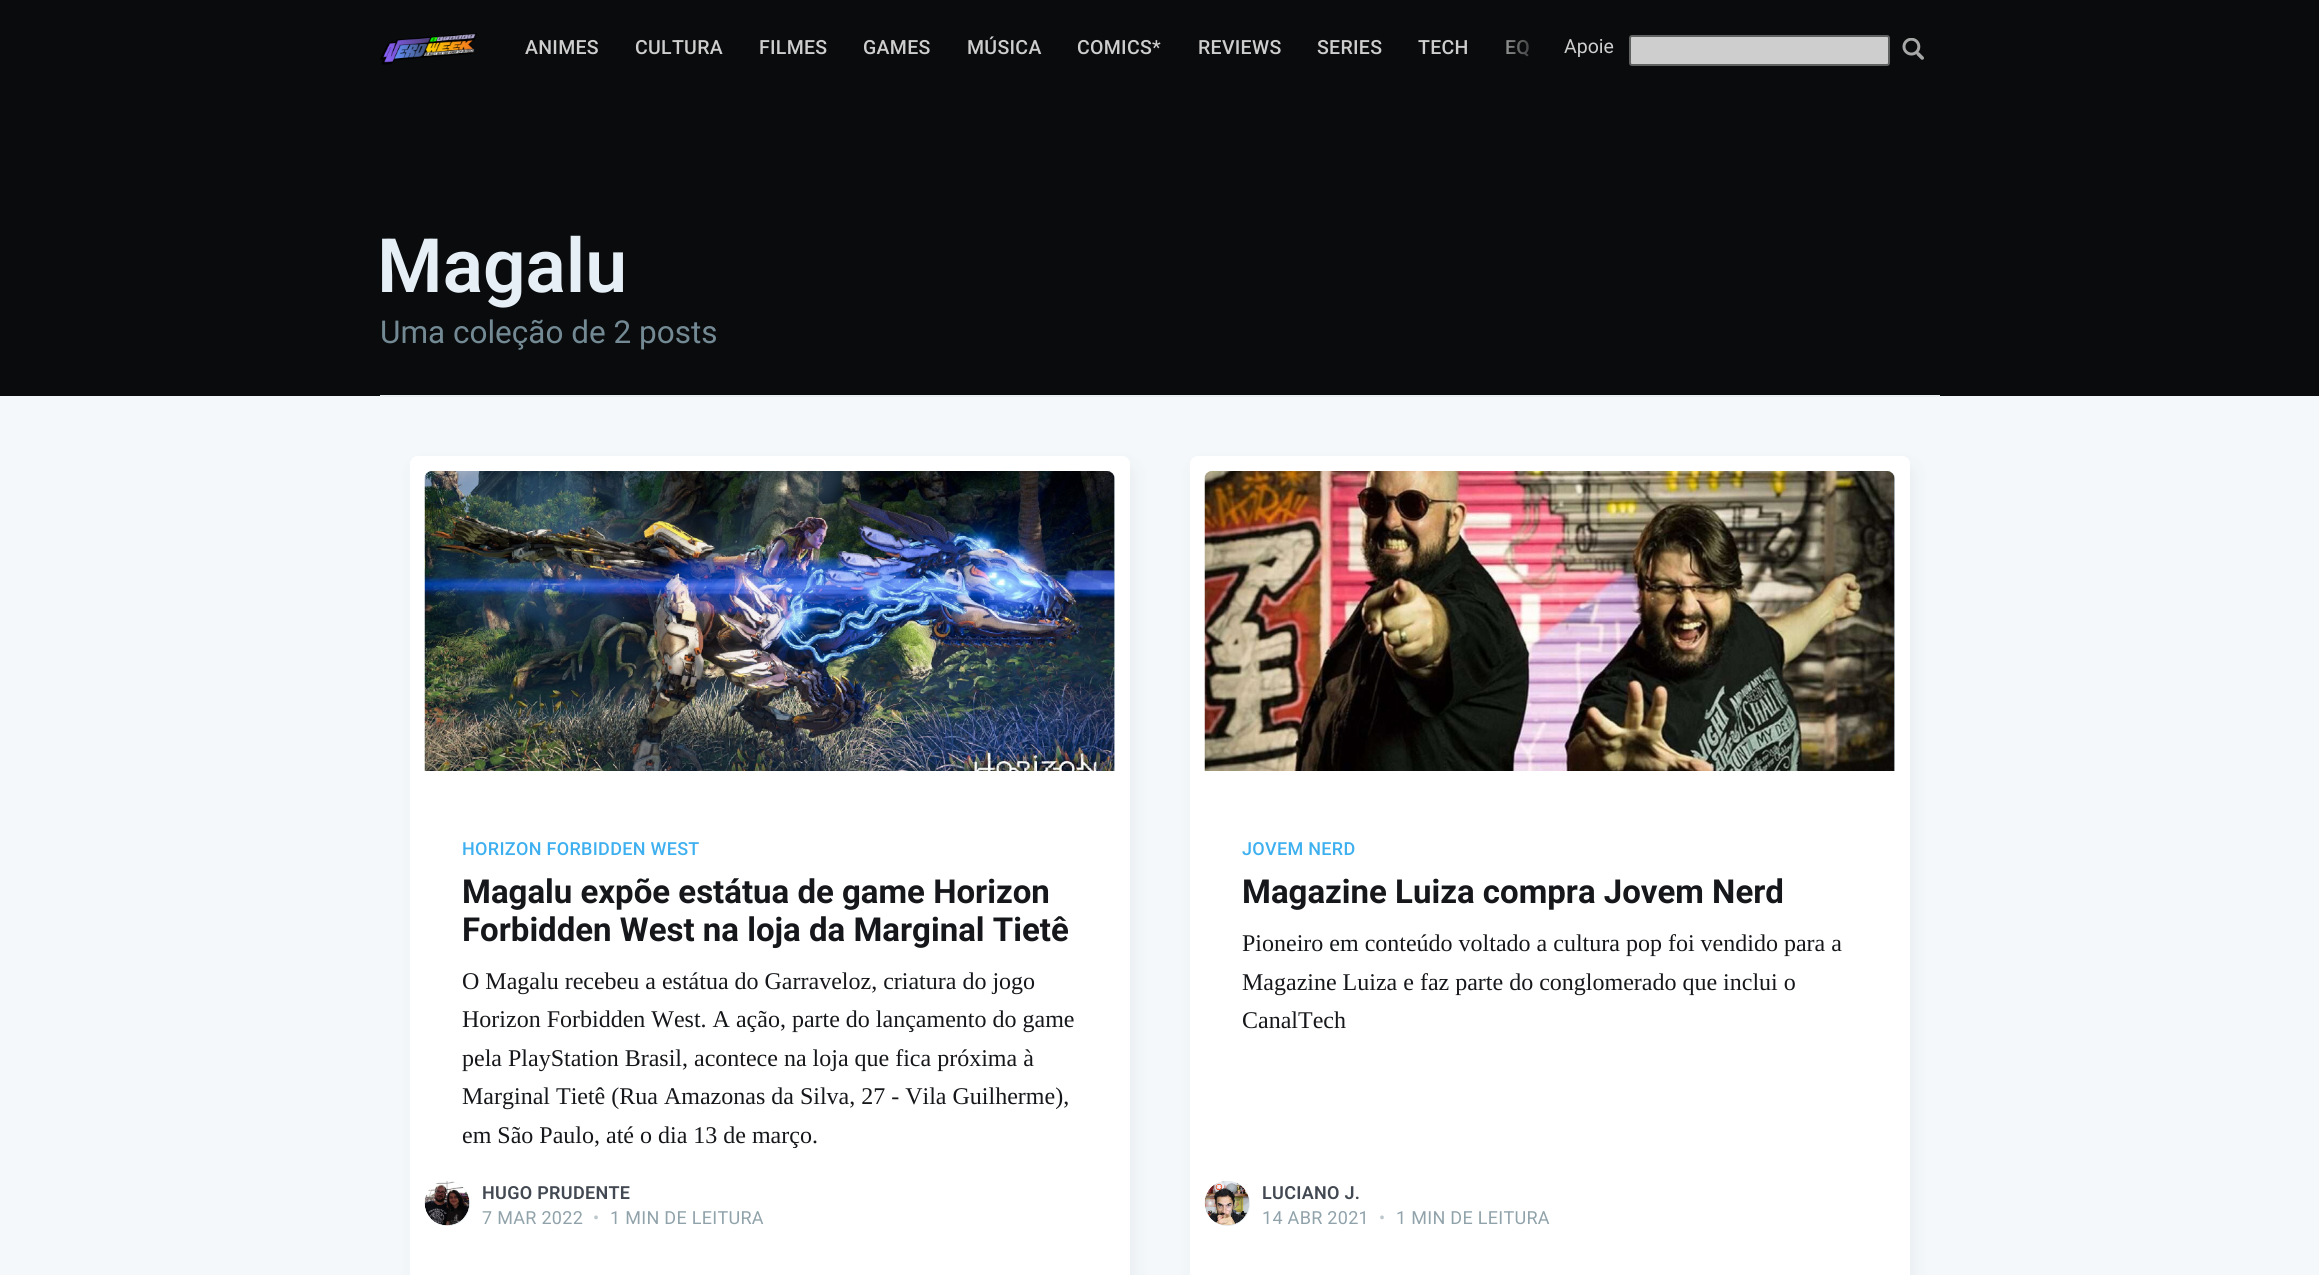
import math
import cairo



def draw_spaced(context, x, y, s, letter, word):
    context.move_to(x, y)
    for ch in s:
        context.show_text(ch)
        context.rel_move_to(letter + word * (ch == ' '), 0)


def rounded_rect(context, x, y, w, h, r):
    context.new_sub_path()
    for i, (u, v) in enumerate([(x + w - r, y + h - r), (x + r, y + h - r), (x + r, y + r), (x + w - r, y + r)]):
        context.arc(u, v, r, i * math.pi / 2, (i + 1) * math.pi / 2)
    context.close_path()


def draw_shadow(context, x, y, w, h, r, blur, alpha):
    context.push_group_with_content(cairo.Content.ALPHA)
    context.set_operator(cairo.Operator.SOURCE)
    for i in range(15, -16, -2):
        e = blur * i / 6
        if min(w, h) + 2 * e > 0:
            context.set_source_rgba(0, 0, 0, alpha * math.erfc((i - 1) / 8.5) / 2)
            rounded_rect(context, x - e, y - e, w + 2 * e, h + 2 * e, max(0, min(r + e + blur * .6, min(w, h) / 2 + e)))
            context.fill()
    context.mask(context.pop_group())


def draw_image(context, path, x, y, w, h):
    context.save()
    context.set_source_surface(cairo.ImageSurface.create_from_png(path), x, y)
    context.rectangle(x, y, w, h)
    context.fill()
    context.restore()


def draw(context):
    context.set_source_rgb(244 / 255, 248 / 255, 251 / 255)
    context.paint()
    context.set_source_rgb(10 / 255, 11 / 255, 12 / 255)
    context.rectangle(0, 0, 2319, 396)
    context.fill()
    draw_image(context, "images/1.png", 380, 33, 97, 32)
    context.set_source_rgb(206 / 255, 206 / 255, 206 / 255)
    rounded_rect(context, 1630, 36, 259, 29, 2)
    context.fill_preserve()
    context.set_source_rgb(96 / 255, 97 / 255, 97 / 255)
    context.stroke()
    draw_image(context, "images/2.png", 1902, 38, 22, 22)
    context.set_source_rgb(234 / 255, 239 / 255, 241 / 255)
    context.rectangle(380, 395, 1560, 2)
    context.fill()
    context.set_source_rgb(39 / 255, 44 / 255, 49 / 255)
    draw_shadow(context, 414, 465, 720, 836, 8, 9, 0.06)
    context.set_source_rgb(1, 1, 1)
    rounded_rect(context, 410, 456, 720, 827, 8)
    context.fill()
    context.set_source_rgb(197 / 255, 210 / 255, 217 / 255)
    context.new_path()
    context.move_to(433, 471)
    context.line_to(1107, 471)
    context.curve_to(1111.5, 471, 1115, 474.5, 1115, 479)
    context.line_to(1115, 771)
    context.line_to(425, 771)
    context.line_to(425, 479)
    context.curve_to(425, 474.5, 428.5, 471, 433, 471)
    context.close_path()
    context.fill()
    draw_image(context, "images/3.png", 424, 471, 691, 300)
    context.set_source_rgb(228 / 255, 234 / 255, 237 / 255)
    context.arc(447.5, 1203.5, 22.5, 0, 2 * math.pi)
    context.fill()
    draw_image(context, "images/4.png", 424, 1181, 46, 45)
    context.set_source_rgb(39 / 255, 44 / 255, 49 / 255)
    draw_shadow(context, 1194, 465, 720, 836, 8, 9, 0.06)
    context.set_source_rgb(1, 1, 1)
    rounded_rect(context, 1190, 456, 720, 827, 8)
    context.fill()
    context.set_source_rgb(197 / 255, 210 / 255, 217 / 255)
    context.new_path()
    context.move_to(1213, 471)
    context.line_to(1887, 471)
    context.curve_to(1891.5, 471, 1895, 474.5, 1895, 479)
    context.line_to(1895, 771)
    context.line_to(1205, 771)
    context.line_to(1205, 479)
    context.curve_to(1205, 474.5, 1208.5, 471, 1213, 471)
    context.close_path()
    context.fill()
    draw_image(context, "images/5.png", 1204, 471, 691, 300)
    context.set_source_rgb(228 / 255, 234 / 255, 237 / 255)
    context.arc(1227.5, 1203.5, 22.5, 0, 2 * math.pi)
    context.fill()
    draw_image(context, "images/6.png", 1204, 1181, 45, 45)
    context.select_font_face("Roboto Medium")
    context.set_font_size(19.5)
    context.set_source_rgb(206 / 255, 206 / 255, 206 / 255)
    draw_spaced(context, 525, 54, "ANIMES", 0.3, 0)
    draw_spaced(context, 635, 54, "CULTURA", 0.3, 0)
    draw_spaced(context, 759, 54, "FILMES", 0.3, 0)
    draw_spaced(context, 863, 54, "GAMES", 0.3, 0)
    draw_spaced(context, 967, 54, "MÚSICA", 0.3, 0)
    draw_spaced(context, 1077, 54, "COMICS*", 0.3, 0)
    draw_spaced(context, 1198, 54, "REVIEWS", 0.3, 0)
    draw_spaced(context, 1317, 54, "SERIES", 0.3, 0)
    draw_spaced(context, 1418, 54, "TECH", 0.3, 0)
    draw_spaced(context, 1505, 54, "EQ", 0.3, 0)
    gradient = cairo.LinearGradient(1487, 101, 1547, 101)
    gradient.add_color_stop_rgba(0, 10 / 255, 11 / 255, 12 / 255, 0)
    gradient.add_color_stop_rgba(1, 10 / 255, 11 / 255, 12 / 255, 1)
    context.set_source(gradient)
    context.rectangle(1506, 40, 23, 17)
    context.fill()
    context.select_font_face("Roboto")
    context.set_source_rgb(206 / 255, 206 / 255, 206 / 255)
    context.move_to(1564, 53)
    context.show_text("Apoie")
    context.select_font_face("Roboto SemiBold")
    context.set_font_size(75)
    context.set_source_rgb(229 / 255, 239 / 255, 245 / 255)
    context.move_to(377, 292)
    context.show_text("Magalu")
    context.select_font_face("Roboto")
    context.set_font_size(31.5)
    context.set_source_rgb(115 / 255, 138 / 255, 148 / 255)
    context.move_to(380, 343)
    context.show_text("Uma coleção de 2 posts")
    context.select_font_face("Roboto Medium")
    context.set_font_size(18)
    context.set_source_rgb(62 / 255, 176 / 255, 239 / 255)
    draw_spaced(context, 462, 855, "HORIZON FORBIDDEN WEST", 0.3, 0)
    context.select_font_face("Roboto", cairo.FontSlant.NORMAL, cairo.FontWeight.BOLD)
    context.set_font_size(33)
    context.set_source_rgb(21 / 255, 23 / 255, 26 / 255)
    context.move_to(462, 903)
    context.show_text("Magalu expõe estátua de game Horizon")
    context.move_to(462, 941)
    context.show_text("Forbidden West na loja da Marginal Tietê")
    context.select_font_face("Liberation Serif")
    context.set_font_size(24)
    context.move_to(462, 989)
    context.show_text("O Magalu recebeu a estátua do Garraveloz, criatura do jogo")
    context.move_to(462, 1027)
    context.show_text("Horizon Forbidden West. A ação, parte do lançamento do game")
    context.move_to(462, 1066)
    context.show_text("pela PlayStation Brasil, acontece na loja que fica próxima à")
    context.move_to(462, 1104)
    context.show_text("Marginal Tietê (Rua Amazonas da Silva, 27 - Vila Guilherme),")
    context.move_to(462, 1143)
    context.show_text("em São Paulo, até o dia 13 de março.")
    context.select_font_face("Roboto SemiBold")
    context.set_font_size(18)
    context.set_source_rgb(67 / 255, 73 / 255, 82 / 255)
    draw_spaced(context, 482, 1199, "HUGO PRUDENTE", 0.3, 0)
    context.select_font_face("Roboto")
    context.set_source_rgb(144 / 255, 162 / 255, 170 / 255)
    draw_spaced(context, 482, 1224, "7 MAR 2022", 0.3, 0)
    context.set_source_rgb(188 / 255, 199 / 255, 204 / 255)
    draw_spaced(context, 593, 1224, "•", 0.3, 0)
    context.set_source_rgb(144 / 255, 162 / 255, 170 / 255)
    draw_spaced(context, 610, 1224, "1 MIN DE LEITURA", 0.3, 0)
    context.select_font_face("Roboto Medium")
    context.set_source_rgb(62 / 255, 176 / 255, 239 / 255)
    draw_spaced(context, 1242, 855, "JOVEM NERD", 0.3, 0)
    context.select_font_face("Roboto", cairo.FontSlant.NORMAL, cairo.FontWeight.BOLD)
    context.set_font_size(33)
    context.set_source_rgb(21 / 255, 23 / 255, 26 / 255)
    context.move_to(1242, 903)
    context.show_text("Magazine Luiza compra Jovem Nerd")
    context.select_font_face("Liberation Serif")
    context.set_font_size(24)
    context.move_to(1242, 951)
    context.show_text("Pioneiro em conteúdo voltado a cultura pop foi vendido para a")
    context.move_to(1242, 990)
    context.show_text("Magazine Luiza e faz parte do conglomerado que inclui o")
    context.move_to(1242, 1028)
    context.show_text("CanalTech")
    context.select_font_face("Roboto SemiBold")
    context.set_font_size(18)
    context.set_source_rgb(67 / 255, 73 / 255, 82 / 255)
    draw_spaced(context, 1262, 1199, "LUCIANO J.", 0.3, 0)
    context.select_font_face("Roboto")
    context.set_source_rgb(144 / 255, 162 / 255, 170 / 255)
    draw_spaced(context, 1262, 1224, "14 ABR 2021", 0.3, 0)
    context.set_source_rgb(188 / 255, 199 / 255, 204 / 255)
    draw_spaced(context, 1379, 1224, "•", 0.3, 0)
    context.set_source_rgb(144 / 255, 162 / 255, 170 / 255)
    draw_spaced(context, 1396, 1224, "1 MIN DE LEITURA", 0.3, 0)


surface = cairo.ImageSurface(cairo.Format.RGB24, 2319, 1275)
context = cairo.Context(surface)
options = cairo.FontOptions()
options.set_hint_metrics(cairo.HintMetrics.OFF)
options.set_hint_style(cairo.HintStyle.NONE)
context.set_font_options(options)
context.set_miter_limit(4)
draw(context)
surface.write_to_png("out.png")
